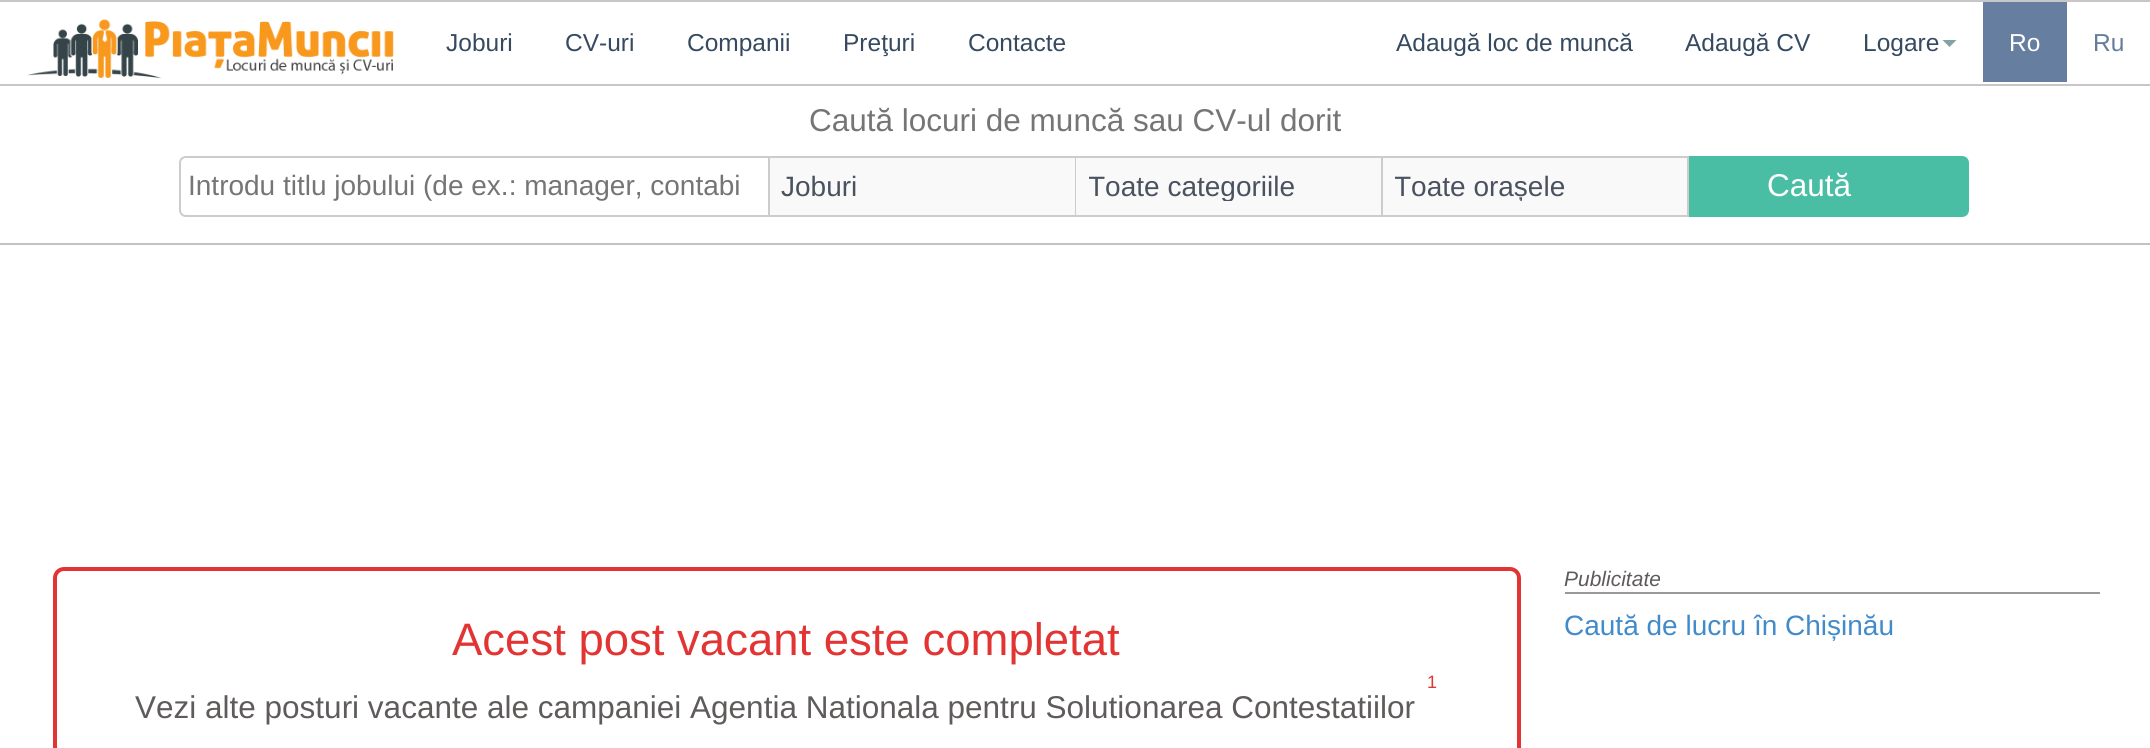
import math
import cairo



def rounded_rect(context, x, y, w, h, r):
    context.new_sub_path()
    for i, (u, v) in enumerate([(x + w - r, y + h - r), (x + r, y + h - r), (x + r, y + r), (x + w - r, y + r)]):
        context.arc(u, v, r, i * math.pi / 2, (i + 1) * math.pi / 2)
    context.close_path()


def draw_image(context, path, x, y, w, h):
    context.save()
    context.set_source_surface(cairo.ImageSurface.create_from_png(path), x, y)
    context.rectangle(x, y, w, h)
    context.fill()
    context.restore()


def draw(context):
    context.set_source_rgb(1, 1, 1)
    context.paint()
    context.set_source_rgb(194 / 255, 194 / 255, 194 / 255)
    context.rectangle(0, 243, 2150, 2)
    context.fill()
    context.set_source_rgb(200 / 255, 198 / 255, 198 / 255)
    context.rectangle(0, 0, 2150, 2)
    context.fill()
    context.rectangle(0, 84, 2150, 2)
    context.fill()
    draw_image(context, "images/1.png", 27, 19, 367, 60)
    context.set_source_rgb(131 / 255, 163 / 255, 163 / 255)
    context.new_path()
    context.move_to(1942.5, 40)
    context.line_to(1956.5, 40)
    context.line_to(1949.5, 47)
    context.close_path()
    context.fill()
    context.set_source_rgb(102 / 255, 126 / 255, 160 / 255)
    context.rectangle(1983, 2, 84, 80)
    context.fill()
    context.new_path()
    context.move_to(186, 157)
    context.line_to(769, 157)
    context.line_to(769, 216)
    context.line_to(186, 216)
    context.curve_to(182.5, 216, 180, 213.5, 180, 210)
    context.line_to(180, 163)
    context.curve_to(180, 159.5, 182.5, 157, 186, 157)
    context.close_path()
    context.set_source_rgb(204 / 255, 204 / 255, 204 / 255)
    context.stroke()
    context.set_source_rgb(249 / 255, 249 / 255, 249 / 255)
    context.rectangle(770, 158, 305, 57)
    context.fill()
    context.set_source_rgb(204 / 255, 204 / 255, 204 / 255)
    context.rectangle(770, 156, 919, 2)
    context.fill()
    context.rectangle(1075, 156, 1, 61)
    context.fill()
    context.rectangle(770, 215, 306, 2)
    context.fill()
    context.set_source_rgb(249 / 255, 249 / 255, 249 / 255)
    context.rectangle(1076, 158, 305, 57)
    context.fill()
    context.set_source_rgb(204 / 255, 204 / 255, 204 / 255)
    context.rectangle(1381, 156, 2, 61)
    context.fill()
    context.rectangle(1076, 215, 307, 2)
    context.fill()
    context.set_source_rgb(249 / 255, 249 / 255, 249 / 255)
    context.rectangle(1383, 158, 304, 57)
    context.fill()
    context.set_source_rgb(204 / 255, 204 / 255, 204 / 255)
    context.rectangle(1687, 156, 2, 61)
    context.fill()
    context.rectangle(1383, 215, 306, 2)
    context.fill()
    context.set_source_rgb(74 / 255, 190 / 255, 165 / 255)
    context.new_path()
    context.move_to(1689, 156)
    context.line_to(1962, 156)
    context.curve_to(1966, 156, 1969, 159, 1969, 163)
    context.line_to(1969, 210)
    context.curve_to(1969, 214, 1966, 217, 1962, 217)
    context.line_to(1689, 217)
    context.close_path()
    context.fill()
    context.set_source_rgb(153 / 255, 153 / 255, 153 / 255)
    context.rectangle(1565, 592, 535, 2)
    context.fill()
    rounded_rect(context, 55, 569, 1464, 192, 9)
    context.set_source_rgb(227 / 255, 52 / 255, 52 / 255)
    context.set_line_width(4)
    context.stroke()
    context.select_font_face("Liberation Sans")
    context.set_font_size(24.5)
    context.set_source_rgb(53 / 255, 74 / 255, 96 / 255)
    context.move_to(446, 51)
    context.show_text("Joburi")
    context.move_to(565, 51)
    context.show_text("CV-uri")
    context.move_to(687, 51)
    context.show_text("Companii")
    context.move_to(843, 51)
    context.show_text("Preţuri")
    context.move_to(968, 51)
    context.show_text("Contacte")
    context.move_to(1396, 51)
    context.show_text("Adaugă loc de muncă")
    context.move_to(1685, 51)
    context.show_text("Adaugă CV")
    context.move_to(1863, 51)
    context.show_text("Logare")
    context.set_source_rgb(1, 1, 1)
    context.move_to(2009, 51)
    context.show_text("Ro")
    context.set_source_rgb(100 / 255, 123 / 255, 155 / 255)
    context.move_to(2093, 51)
    context.show_text("Ru")
    context.set_font_size(31.5)
    context.set_source_rgb(117 / 255, 117 / 255, 117 / 255)
    context.move_to(809, 131)
    context.show_text("Caută locuri de muncă sau CV-ul dorit")
    context.set_font_size(28)
    context.move_to(188, 195)
    context.show_text("Introdu titlu jobului (de ex.: manager, contabi")
    context.set_source_rgb(74 / 255, 82 / 255, 96 / 255)
    context.move_to(781, 196)
    context.show_text("Joburi")
    context.save()
    context.rectangle(1089, 172, 280, 29)
    context.clip()
    context.move_to(1088, 196)
    context.show_text("Toate categoriile")
    context.restore()
    context.save()
    context.rectangle(1395, 172, 280, 29)
    context.clip()
    context.move_to(1394, 196)
    context.show_text("Toate orașele")
    context.restore()
    context.set_font_size(31.5)
    context.set_source_rgb(1, 1, 1)
    context.move_to(1767, 196)
    context.show_text("Caută")
    context.select_font_face("Liberation Sans", cairo.FontSlant.ITALIC)
    context.set_font_size(21)
    context.set_source_rgb(96 / 255, 91 / 255, 91 / 255)
    context.move_to(1564, 586)
    context.show_text("Publicitate")
    context.select_font_face("Liberation Sans")
    context.set_font_size(28)
    context.set_source_rgb(66 / 255, 139 / 255, 202 / 255)
    context.move_to(1564, 635)
    context.show_text("Caută de lucru în Chișinău")
    context.set_font_size(45.5)
    context.set_source_rgb(227 / 255, 52 / 255, 52 / 255)
    context.move_to(452, 655)
    context.show_text("Acest post vacant este completat")
    context.set_font_size(18)
    context.move_to(1427, 688)
    context.show_text("1")
    context.set_font_size(31.5)
    context.set_source_rgb(96 / 255, 91 / 255, 91 / 255)
    context.move_to(135, 718)
    context.show_text("Vezi alte posturi vacante ale campaniei Agentia Nationala pentru Solutionarea Contestatiilor")


surface = cairo.ImageSurface(cairo.Format.RGB24, 2150, 748)
context = cairo.Context(surface)
options = cairo.FontOptions()
options.set_hint_metrics(cairo.HintMetrics.OFF)
options.set_hint_style(cairo.HintStyle.NONE)
context.set_font_options(options)
context.set_miter_limit(4)
draw(context)
surface.write_to_png("out.png")
